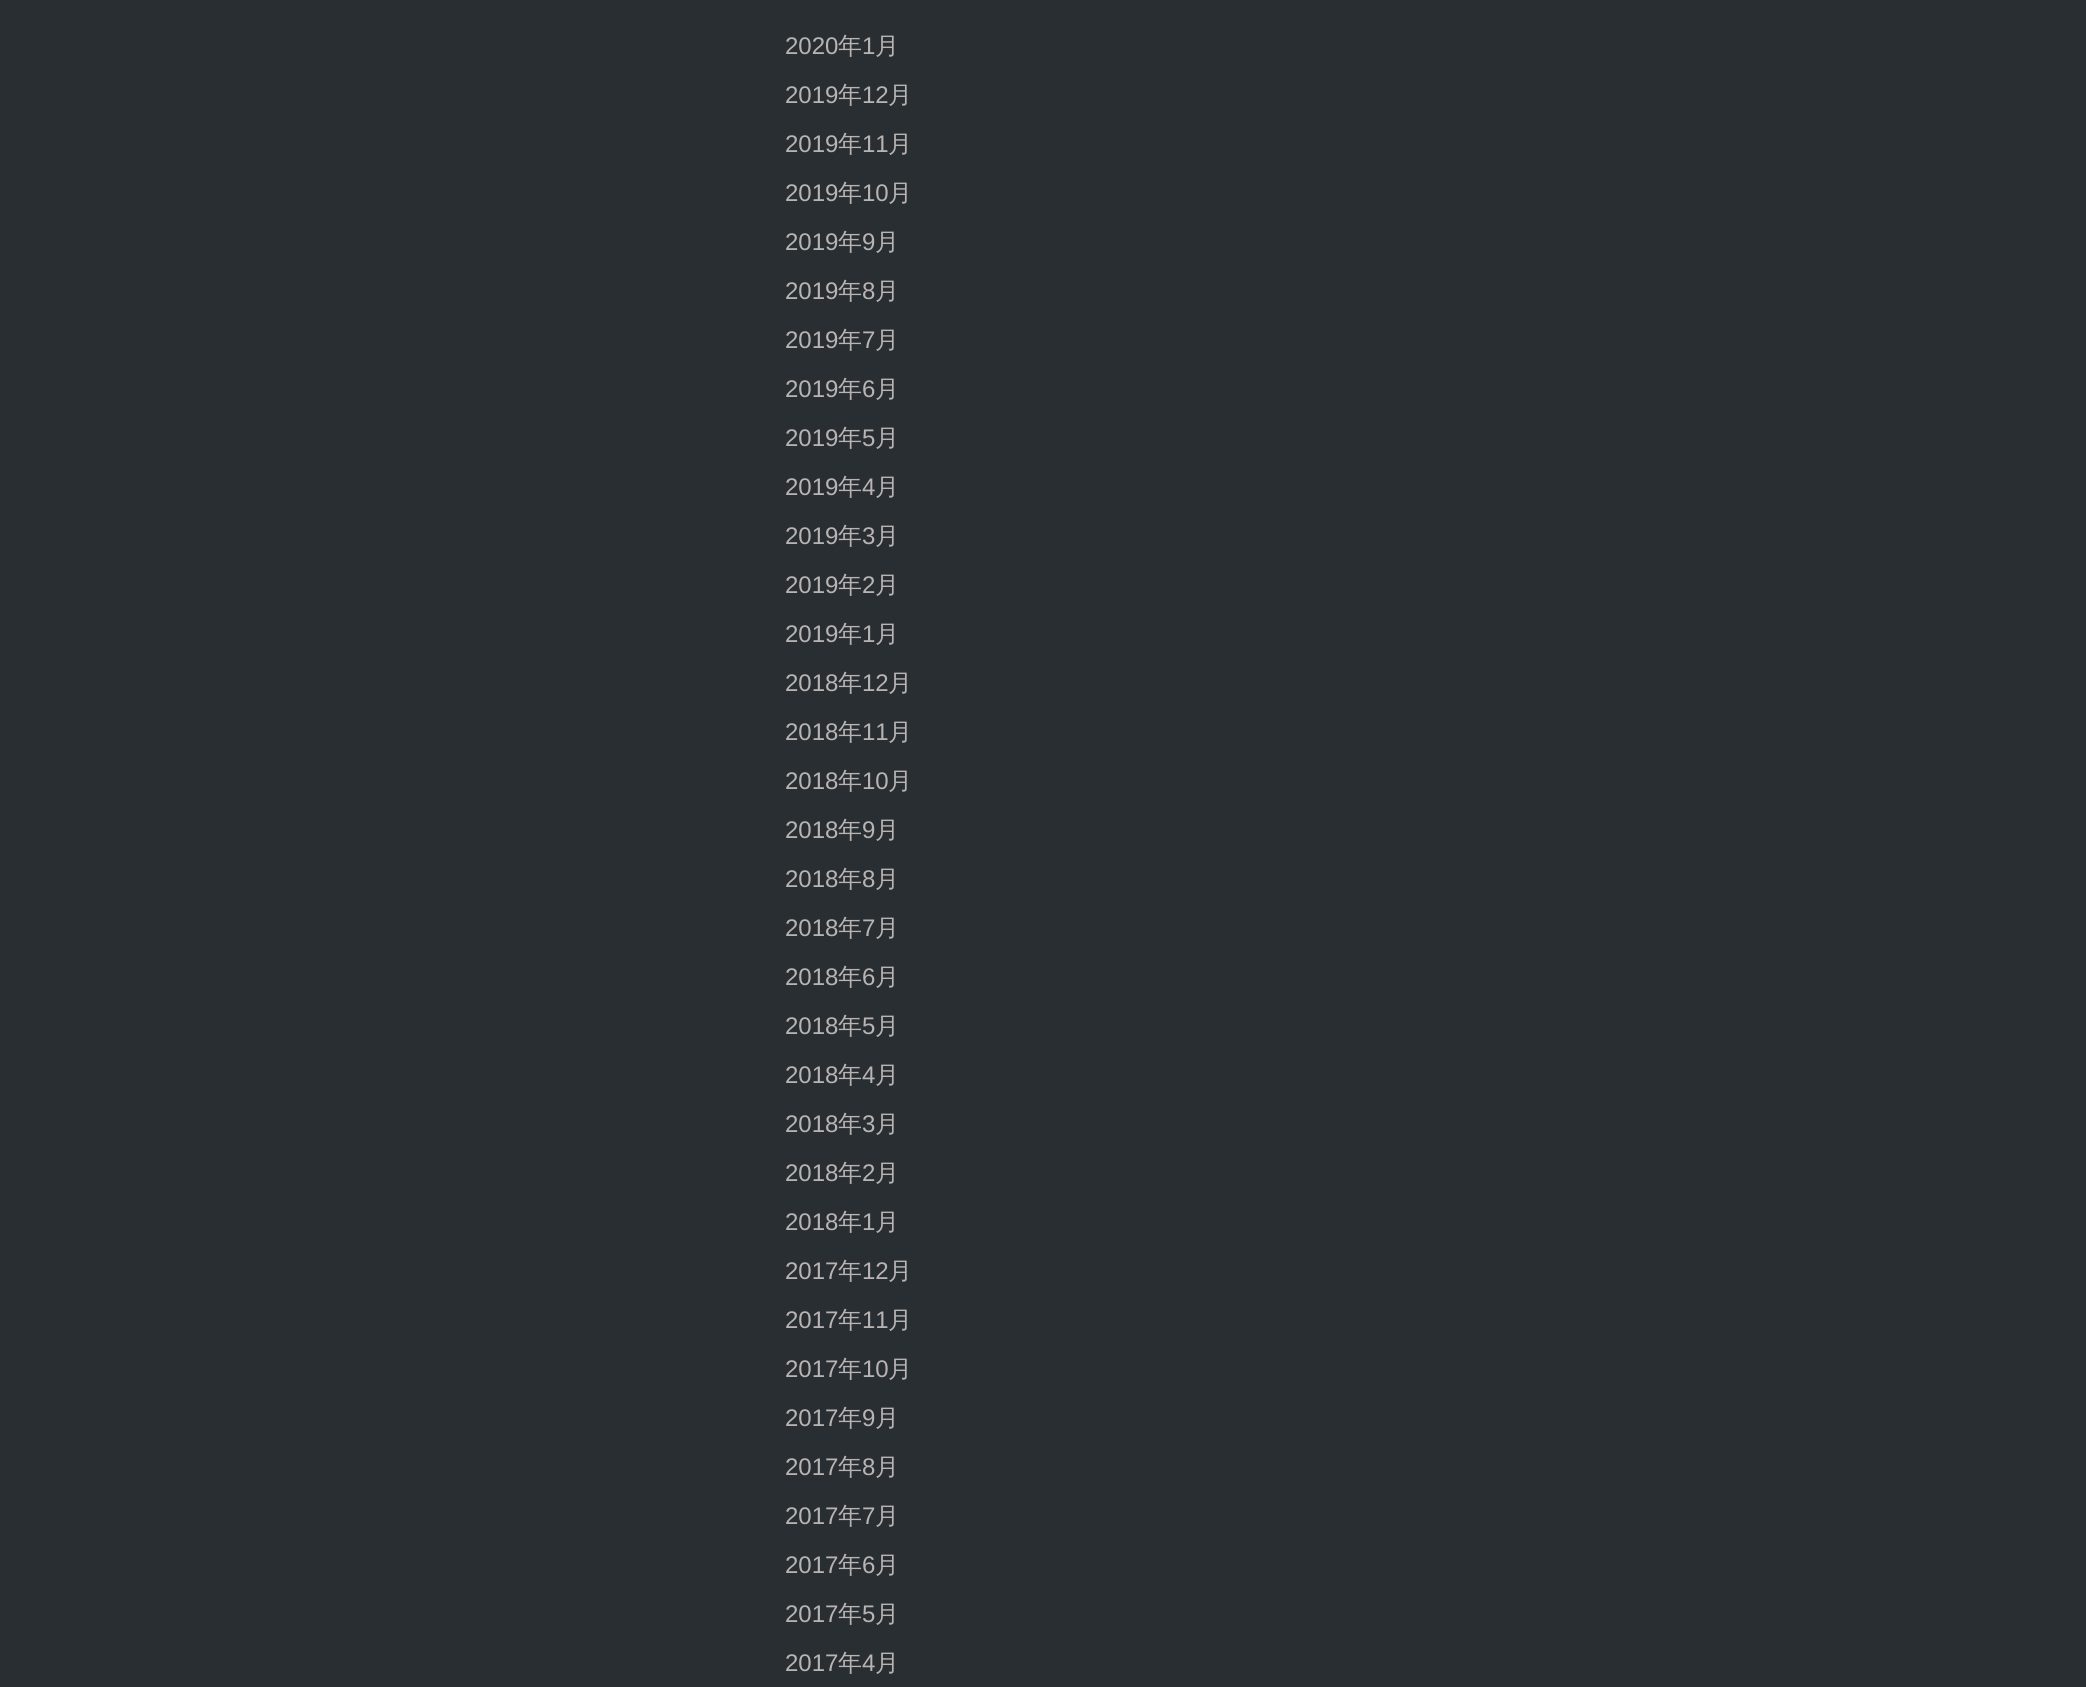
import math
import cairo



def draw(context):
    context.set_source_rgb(41 / 255, 46 / 255, 50 / 255)
    context.paint()
    context.select_font_face("Liberation Sans")
    context.set_font_size(24)
    context.set_source_rgb(184 / 255, 180 / 255, 180 / 255)
    context.move_to(785, 54)
    context.show_text("2020")
    context.select_font_face("WenQuanYi Zen Hei Medium")
    context.move_to(838, 54)
    context.show_text("年")
    context.select_font_face("Liberation Sans")
    context.move_to(862, 54)
    context.show_text("1")
    context.select_font_face("WenQuanYi Zen Hei Medium")
    context.move_to(875, 54)
    context.show_text("月")
    context.select_font_face("Liberation Sans")
    context.move_to(785, 103)
    context.show_text("2019")
    context.select_font_face("WenQuanYi Zen Hei Medium")
    context.move_to(838, 103)
    context.show_text("年")
    context.select_font_face("Liberation Sans")
    context.move_to(862, 103)
    context.show_text("12")
    context.select_font_face("WenQuanYi Zen Hei Medium")
    context.move_to(888, 103)
    context.show_text("月")
    context.select_font_face("Liberation Sans")
    context.move_to(785, 152)
    context.show_text("2019")
    context.select_font_face("WenQuanYi Zen Hei Medium")
    context.move_to(838, 152)
    context.show_text("年")
    context.select_font_face("Liberation Sans")
    context.move_to(862, 152)
    context.show_text("11")
    context.select_font_face("WenQuanYi Zen Hei Medium")
    context.move_to(888, 152)
    context.show_text("月")
    context.select_font_face("Liberation Sans")
    context.move_to(785, 201)
    context.show_text("2019")
    context.select_font_face("WenQuanYi Zen Hei Medium")
    context.move_to(838, 201)
    context.show_text("年")
    context.select_font_face("Liberation Sans")
    context.move_to(862, 201)
    context.show_text("10")
    context.select_font_face("WenQuanYi Zen Hei Medium")
    context.move_to(888, 201)
    context.show_text("月")
    context.select_font_face("Liberation Sans")
    context.move_to(785, 250)
    context.show_text("2019")
    context.select_font_face("WenQuanYi Zen Hei Medium")
    context.move_to(838, 250)
    context.show_text("年")
    context.select_font_face("Liberation Sans")
    context.move_to(862, 250)
    context.show_text("9")
    context.select_font_face("WenQuanYi Zen Hei Medium")
    context.move_to(875, 250)
    context.show_text("月")
    context.select_font_face("Liberation Sans")
    context.move_to(785, 299)
    context.show_text("2019")
    context.select_font_face("WenQuanYi Zen Hei Medium")
    context.move_to(838, 299)
    context.show_text("年")
    context.select_font_face("Liberation Sans")
    context.move_to(862, 299)
    context.show_text("8")
    context.select_font_face("WenQuanYi Zen Hei Medium")
    context.move_to(875, 299)
    context.show_text("月")
    context.select_font_face("Liberation Sans")
    context.move_to(785, 348)
    context.show_text("2019")
    context.select_font_face("WenQuanYi Zen Hei Medium")
    context.move_to(838, 348)
    context.show_text("年")
    context.select_font_face("Liberation Sans")
    context.move_to(862, 348)
    context.show_text("7")
    context.select_font_face("WenQuanYi Zen Hei Medium")
    context.move_to(875, 348)
    context.show_text("月")
    context.select_font_face("Liberation Sans")
    context.move_to(785, 397)
    context.show_text("2019")
    context.select_font_face("WenQuanYi Zen Hei Medium")
    context.move_to(838, 397)
    context.show_text("年")
    context.select_font_face("Liberation Sans")
    context.move_to(862, 397)
    context.show_text("6")
    context.select_font_face("WenQuanYi Zen Hei Medium")
    context.move_to(875, 397)
    context.show_text("月")
    context.select_font_face("Liberation Sans")
    context.move_to(785, 446)
    context.show_text("2019")
    context.select_font_face("WenQuanYi Zen Hei Medium")
    context.move_to(838, 446)
    context.show_text("年")
    context.select_font_face("Liberation Sans")
    context.move_to(862, 446)
    context.show_text("5")
    context.select_font_face("WenQuanYi Zen Hei Medium")
    context.move_to(875, 446)
    context.show_text("月")
    context.select_font_face("Liberation Sans")
    context.move_to(785, 495)
    context.show_text("2019")
    context.select_font_face("WenQuanYi Zen Hei Medium")
    context.move_to(838, 495)
    context.show_text("年")
    context.select_font_face("Liberation Sans")
    context.move_to(862, 495)
    context.show_text("4")
    context.select_font_face("WenQuanYi Zen Hei Medium")
    context.move_to(875, 495)
    context.show_text("月")
    context.select_font_face("Liberation Sans")
    context.move_to(785, 544)
    context.show_text("2019")
    context.select_font_face("WenQuanYi Zen Hei Medium")
    context.move_to(838, 544)
    context.show_text("年")
    context.select_font_face("Liberation Sans")
    context.move_to(862, 544)
    context.show_text("3")
    context.select_font_face("WenQuanYi Zen Hei Medium")
    context.move_to(875, 544)
    context.show_text("月")
    context.select_font_face("Liberation Sans")
    context.move_to(785, 593)
    context.show_text("2019")
    context.select_font_face("WenQuanYi Zen Hei Medium")
    context.move_to(838, 593)
    context.show_text("年")
    context.select_font_face("Liberation Sans")
    context.move_to(862, 593)
    context.show_text("2")
    context.select_font_face("WenQuanYi Zen Hei Medium")
    context.move_to(875, 593)
    context.show_text("月")
    context.select_font_face("Liberation Sans")
    context.move_to(785, 642)
    context.show_text("2019")
    context.select_font_face("WenQuanYi Zen Hei Medium")
    context.move_to(838, 642)
    context.show_text("年")
    context.select_font_face("Liberation Sans")
    context.move_to(862, 642)
    context.show_text("1")
    context.select_font_face("WenQuanYi Zen Hei Medium")
    context.move_to(875, 642)
    context.show_text("月")
    context.select_font_face("Liberation Sans")
    context.move_to(785, 691)
    context.show_text("2018")
    context.select_font_face("WenQuanYi Zen Hei Medium")
    context.move_to(838, 691)
    context.show_text("年")
    context.select_font_face("Liberation Sans")
    context.move_to(862, 691)
    context.show_text("12")
    context.select_font_face("WenQuanYi Zen Hei Medium")
    context.move_to(888, 691)
    context.show_text("月")
    context.select_font_face("Liberation Sans")
    context.move_to(785, 740)
    context.show_text("2018")
    context.select_font_face("WenQuanYi Zen Hei Medium")
    context.move_to(838, 740)
    context.show_text("年")
    context.select_font_face("Liberation Sans")
    context.move_to(862, 740)
    context.show_text("11")
    context.select_font_face("WenQuanYi Zen Hei Medium")
    context.move_to(888, 740)
    context.show_text("月")
    context.select_font_face("Liberation Sans")
    context.move_to(785, 789)
    context.show_text("2018")
    context.select_font_face("WenQuanYi Zen Hei Medium")
    context.move_to(838, 789)
    context.show_text("年")
    context.select_font_face("Liberation Sans")
    context.move_to(862, 789)
    context.show_text("10")
    context.select_font_face("WenQuanYi Zen Hei Medium")
    context.move_to(888, 789)
    context.show_text("月")
    context.select_font_face("Liberation Sans")
    context.move_to(785, 838)
    context.show_text("2018")
    context.select_font_face("WenQuanYi Zen Hei Medium")
    context.move_to(838, 838)
    context.show_text("年")
    context.select_font_face("Liberation Sans")
    context.move_to(862, 838)
    context.show_text("9")
    context.select_font_face("WenQuanYi Zen Hei Medium")
    context.move_to(875, 838)
    context.show_text("月")
    context.select_font_face("Liberation Sans")
    context.move_to(785, 887)
    context.show_text("2018")
    context.select_font_face("WenQuanYi Zen Hei Medium")
    context.move_to(838, 887)
    context.show_text("年")
    context.select_font_face("Liberation Sans")
    context.move_to(862, 887)
    context.show_text("8")
    context.select_font_face("WenQuanYi Zen Hei Medium")
    context.move_to(875, 887)
    context.show_text("月")
    context.select_font_face("Liberation Sans")
    context.move_to(785, 936)
    context.show_text("2018")
    context.select_font_face("WenQuanYi Zen Hei Medium")
    context.move_to(838, 936)
    context.show_text("年")
    context.select_font_face("Liberation Sans")
    context.move_to(862, 936)
    context.show_text("7")
    context.select_font_face("WenQuanYi Zen Hei Medium")
    context.move_to(875, 936)
    context.show_text("月")
    context.select_font_face("Liberation Sans")
    context.move_to(785, 985)
    context.show_text("2018")
    context.select_font_face("WenQuanYi Zen Hei Medium")
    context.move_to(838, 985)
    context.show_text("年")
    context.select_font_face("Liberation Sans")
    context.move_to(862, 985)
    context.show_text("6")
    context.select_font_face("WenQuanYi Zen Hei Medium")
    context.move_to(875, 985)
    context.show_text("月")
    context.select_font_face("Liberation Sans")
    context.move_to(785, 1034)
    context.show_text("2018")
    context.select_font_face("WenQuanYi Zen Hei Medium")
    context.move_to(838, 1034)
    context.show_text("年")
    context.select_font_face("Liberation Sans")
    context.move_to(862, 1034)
    context.show_text("5")
    context.select_font_face("WenQuanYi Zen Hei Medium")
    context.move_to(875, 1034)
    context.show_text("月")
    context.select_font_face("Liberation Sans")
    context.move_to(785, 1083)
    context.show_text("2018")
    context.select_font_face("WenQuanYi Zen Hei Medium")
    context.move_to(838, 1083)
    context.show_text("年")
    context.select_font_face("Liberation Sans")
    context.move_to(862, 1083)
    context.show_text("4")
    context.select_font_face("WenQuanYi Zen Hei Medium")
    context.move_to(875, 1083)
    context.show_text("月")
    context.select_font_face("Liberation Sans")
    context.move_to(785, 1132)
    context.show_text("2018")
    context.select_font_face("WenQuanYi Zen Hei Medium")
    context.move_to(838, 1132)
    context.show_text("年")
    context.select_font_face("Liberation Sans")
    context.move_to(862, 1132)
    context.show_text("3")
    context.select_font_face("WenQuanYi Zen Hei Medium")
    context.move_to(875, 1132)
    context.show_text("月")
    context.select_font_face("Liberation Sans")
    context.move_to(785, 1181)
    context.show_text("2018")
    context.select_font_face("WenQuanYi Zen Hei Medium")
    context.move_to(838, 1181)
    context.show_text("年")
    context.select_font_face("Liberation Sans")
    context.move_to(862, 1181)
    context.show_text("2")
    context.select_font_face("WenQuanYi Zen Hei Medium")
    context.move_to(875, 1181)
    context.show_text("月")
    context.select_font_face("Liberation Sans")
    context.move_to(785, 1230)
    context.show_text("2018")
    context.select_font_face("WenQuanYi Zen Hei Medium")
    context.move_to(838, 1230)
    context.show_text("年")
    context.select_font_face("Liberation Sans")
    context.move_to(862, 1230)
    context.show_text("1")
    context.select_font_face("WenQuanYi Zen Hei Medium")
    context.move_to(875, 1230)
    context.show_text("月")
    context.select_font_face("Liberation Sans")
    context.move_to(785, 1279)
    context.show_text("2017")
    context.select_font_face("WenQuanYi Zen Hei Medium")
    context.move_to(838, 1279)
    context.show_text("年")
    context.select_font_face("Liberation Sans")
    context.move_to(862, 1279)
    context.show_text("12")
    context.select_font_face("WenQuanYi Zen Hei Medium")
    context.move_to(888, 1279)
    context.show_text("月")
    context.select_font_face("Liberation Sans")
    context.move_to(785, 1328)
    context.show_text("2017")
    context.select_font_face("WenQuanYi Zen Hei Medium")
    context.move_to(838, 1328)
    context.show_text("年")
    context.select_font_face("Liberation Sans")
    context.move_to(862, 1328)
    context.show_text("11")
    context.select_font_face("WenQuanYi Zen Hei Medium")
    context.move_to(888, 1328)
    context.show_text("月")
    context.select_font_face("Liberation Sans")
    context.move_to(785, 1377)
    context.show_text("2017")
    context.select_font_face("WenQuanYi Zen Hei Medium")
    context.move_to(838, 1377)
    context.show_text("年")
    context.select_font_face("Liberation Sans")
    context.move_to(862, 1377)
    context.show_text("10")
    context.select_font_face("WenQuanYi Zen Hei Medium")
    context.move_to(888, 1377)
    context.show_text("月")
    context.select_font_face("Liberation Sans")
    context.move_to(785, 1426)
    context.show_text("2017")
    context.select_font_face("WenQuanYi Zen Hei Medium")
    context.move_to(838, 1426)
    context.show_text("年")
    context.select_font_face("Liberation Sans")
    context.move_to(862, 1426)
    context.show_text("9")
    context.select_font_face("WenQuanYi Zen Hei Medium")
    context.move_to(875, 1426)
    context.show_text("月")
    context.select_font_face("Liberation Sans")
    context.move_to(785, 1475)
    context.show_text("2017")
    context.select_font_face("WenQuanYi Zen Hei Medium")
    context.move_to(838, 1475)
    context.show_text("年")
    context.select_font_face("Liberation Sans")
    context.move_to(862, 1475)
    context.show_text("8")
    context.select_font_face("WenQuanYi Zen Hei Medium")
    context.move_to(875, 1475)
    context.show_text("月")
    context.select_font_face("Liberation Sans")
    context.move_to(785, 1524)
    context.show_text("2017")
    context.select_font_face("WenQuanYi Zen Hei Medium")
    context.move_to(838, 1524)
    context.show_text("年")
    context.select_font_face("Liberation Sans")
    context.move_to(862, 1524)
    context.show_text("7")
    context.select_font_face("WenQuanYi Zen Hei Medium")
    context.move_to(875, 1524)
    context.show_text("月")
    context.select_font_face("Liberation Sans")
    context.move_to(785, 1573)
    context.show_text("2017")
    context.select_font_face("WenQuanYi Zen Hei Medium")
    context.move_to(838, 1573)
    context.show_text("年")
    context.select_font_face("Liberation Sans")
    context.move_to(862, 1573)
    context.show_text("6")
    context.select_font_face("WenQuanYi Zen Hei Medium")
    context.move_to(875, 1573)
    context.show_text("月")
    context.select_font_face("Liberation Sans")
    context.move_to(785, 1622)
    context.show_text("2017")
    context.select_font_face("WenQuanYi Zen Hei Medium")
    context.move_to(838, 1622)
    context.show_text("年")
    context.select_font_face("Liberation Sans")
    context.move_to(862, 1622)
    context.show_text("5")
    context.select_font_face("WenQuanYi Zen Hei Medium")
    context.move_to(875, 1622)
    context.show_text("月")
    context.select_font_face("Liberation Sans")
    context.move_to(785, 1671)
    context.show_text("2017")
    context.select_font_face("WenQuanYi Zen Hei Medium")
    context.move_to(838, 1671)
    context.show_text("年")
    context.select_font_face("Liberation Sans")
    context.move_to(862, 1671)
    context.show_text("4")
    context.select_font_face("WenQuanYi Zen Hei Medium")
    context.move_to(875, 1671)
    context.show_text("月")


surface = cairo.ImageSurface(cairo.Format.RGB24, 2086, 1687)
context = cairo.Context(surface)
options = cairo.FontOptions()
options.set_hint_metrics(cairo.HintMetrics.OFF)
options.set_hint_style(cairo.HintStyle.NONE)
context.set_font_options(options)
context.set_miter_limit(4)
draw(context)
surface.write_to_png("out.png")
